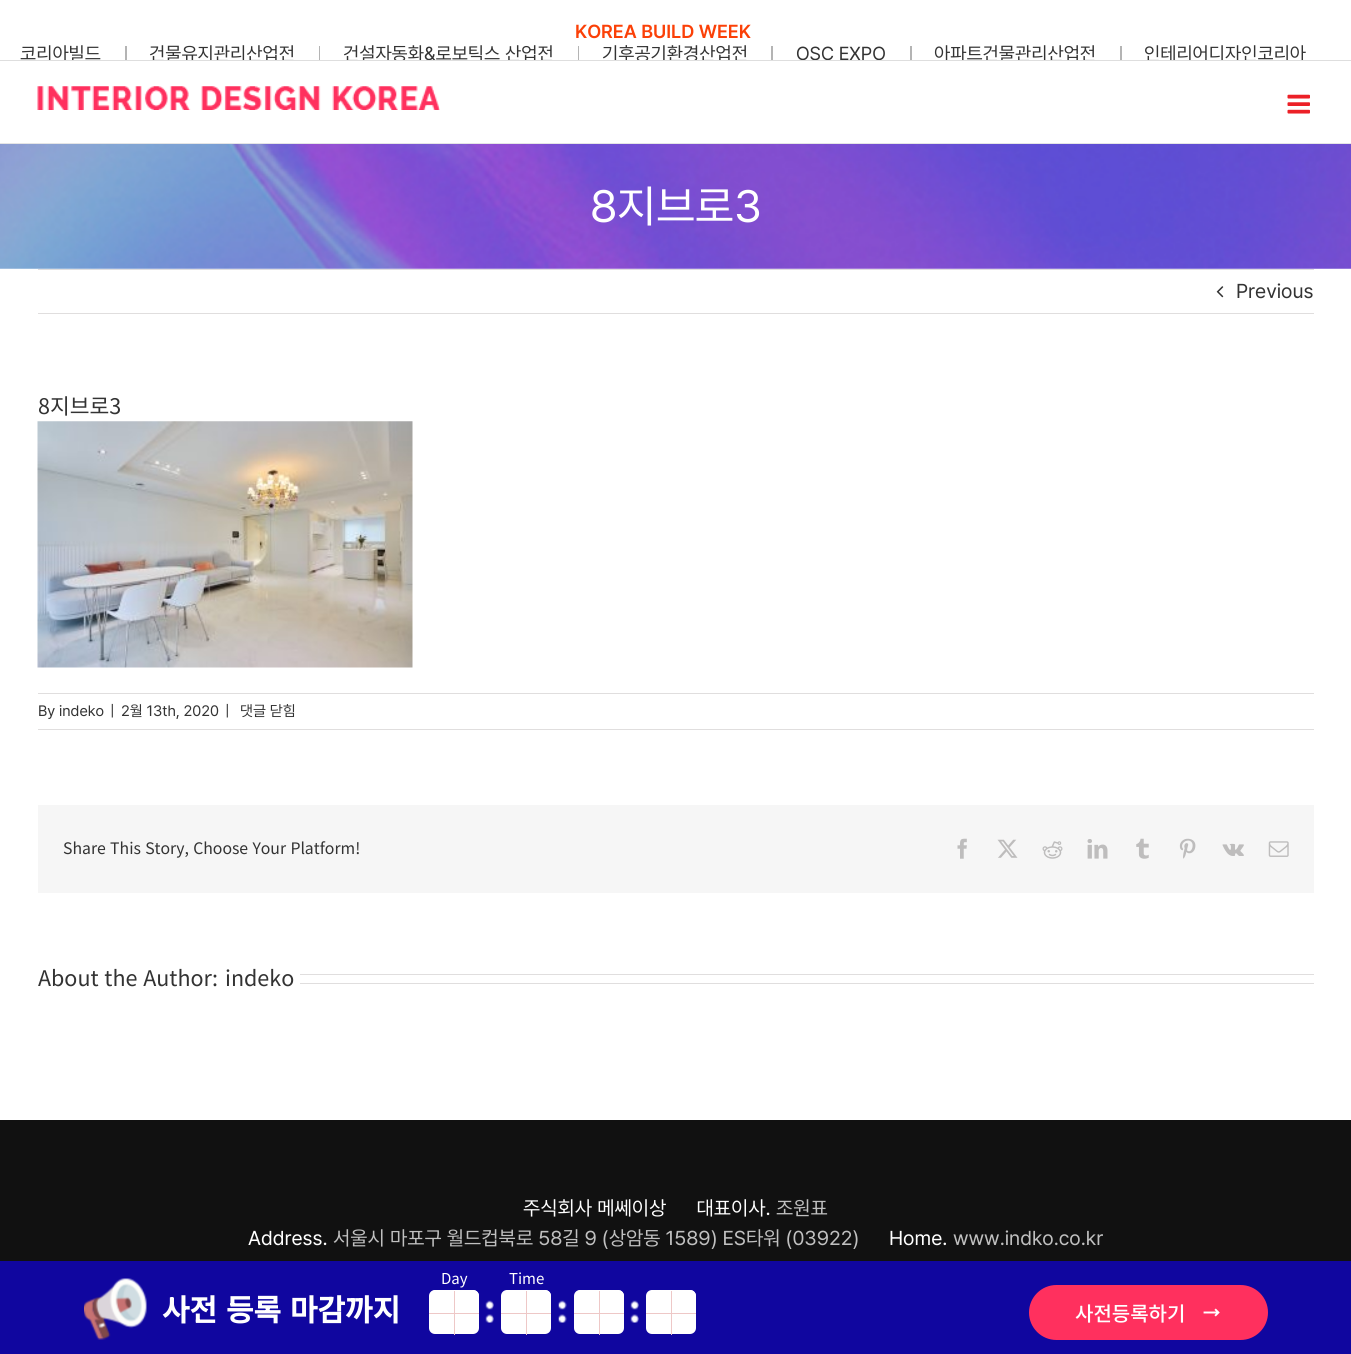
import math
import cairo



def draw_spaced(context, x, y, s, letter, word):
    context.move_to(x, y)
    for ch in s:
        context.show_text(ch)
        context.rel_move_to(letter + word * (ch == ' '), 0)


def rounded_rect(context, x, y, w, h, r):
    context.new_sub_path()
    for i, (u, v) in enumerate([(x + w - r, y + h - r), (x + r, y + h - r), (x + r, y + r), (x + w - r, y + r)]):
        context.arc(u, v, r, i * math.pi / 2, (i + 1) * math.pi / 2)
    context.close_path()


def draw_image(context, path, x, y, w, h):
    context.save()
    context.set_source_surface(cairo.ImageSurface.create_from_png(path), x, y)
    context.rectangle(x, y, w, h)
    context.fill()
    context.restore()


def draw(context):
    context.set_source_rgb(1, 1, 1)
    context.paint()
    context.set_source_rgb(180 / 255, 180 / 255, 180 / 255)
    context.rectangle(125, 46, 2, 16)
    context.fill()
    context.rectangle(319, 46, 1, 16)
    context.fill()
    context.rectangle(578, 46, 1, 16)
    context.fill()
    context.rectangle(771, 46, 2, 16)
    context.fill()
    context.rectangle(910, 46, 2, 16)
    context.fill()
    context.rectangle(1120, 46, 2, 16)
    context.fill()
    context.set_source_rgb(229 / 255, 229 / 255, 229 / 255)
    context.rectangle(0, 143, 1351, 1)
    context.fill()
    draw_image(context, "images/1.png", 37, 86, 403, 24)
    draw_image(context, "images/2.png", 1287, 94, 23, 20)
    draw_image(context, "images/3.png", 0, 144, 1351, 125)
    context.set_source_rgb(224 / 255, 222 / 255, 222 / 255)
    context.rectangle(38, 269, 1276, 1)
    context.fill()
    context.rectangle(38, 313, 1276, 1)
    context.fill()
    draw_image(context, "images/4.png", 1216, 286, 8, 12)
    draw_image(context, "images/5.png", 37, 421, 376, 247)
    context.rectangle(38, 693, 1276, 1)
    context.fill()
    context.rectangle(38, 729, 1276, 1)
    context.fill()
    context.set_source_rgb(246 / 255, 246 / 255, 246 / 255)
    context.rectangle(38, 805, 1276, 88)
    context.fill()
    draw_image(context, "images/6.png", 957, 838, 10, 21)
    draw_image(context, "images/7.png", 997, 839, 21, 19)
    draw_image(context, "images/8.png", 1042, 841, 21, 18)
    draw_image(context, "images/9.png", 1087, 839, 21, 20)
    draw_image(context, "images/10.png", 1136, 838, 13, 21)
    draw_image(context, "images/11.png", 1179, 838, 17, 21)
    draw_image(context, "images/12.png", 1222, 843, 22, 13)
    draw_image(context, "images/13.png", 1268, 841, 21, 16)
    context.set_source_rgb(224 / 255, 222 / 255, 222 / 255)
    context.rectangle(300, 974, 1014, 1)
    context.fill()
    context.rectangle(300, 983, 1014, 1)
    context.fill()
    context.set_source_rgb(17 / 255, 17 / 255, 17 / 255)
    context.rectangle(0, 1120, 1351, 141)
    context.fill()
    context.set_source_rgb(16 / 255, 6 / 255, 159 / 255)
    context.rectangle(0, 1261, 1351, 93)
    context.fill()
    context.set_source_rgb(1, 1, 1)
    rounded_rect(context, 429, 1290, 50, 44, 6)
    context.fill()
    rounded_rect(context, 430, 1290, 24, 23, 6)
    context.fill()
    context.set_source_rgb(238 / 255, 200 / 255, 199 / 255)
    context.rectangle(454, 1291, 1, 44)
    context.fill()
    context.set_source_rgb(1, 1, 1)
    rounded_rect(context, 455, 1290, 24, 23, 6)
    context.fill()
    context.set_source_rgb(238 / 255, 200 / 255, 199 / 255)
    context.rectangle(429, 1313, 50, 1)
    context.fill()
    context.set_source_rgb(1, 1, 1)
    rounded_rect(context, 501, 1290, 50, 44, 6)
    context.fill()
    rounded_rect(context, 503, 1290, 23, 23, 6)
    context.fill()
    context.set_source_rgb(238 / 255, 200 / 255, 199 / 255)
    context.rectangle(526, 1291, 1, 44)
    context.fill()
    context.set_source_rgb(1, 1, 1)
    rounded_rect(context, 528, 1290, 23, 23, 6)
    context.fill()
    context.set_source_rgb(238 / 255, 200 / 255, 199 / 255)
    context.rectangle(501, 1313, 50, 1)
    context.fill()
    draw_image(context, "images/14.png", 485, 1300, 9, 23)
    draw_image(context, "images/15.png", 558, 1300, 9, 23)
    context.set_source_rgb(1, 1, 1)
    rounded_rect(context, 574, 1290, 50, 44, 6)
    context.fill()
    rounded_rect(context, 575, 1290, 24, 23, 6)
    context.fill()
    context.set_source_rgb(238 / 255, 200 / 255, 199 / 255)
    context.rectangle(599, 1291, 1, 44)
    context.fill()
    context.set_source_rgb(1, 1, 1)
    rounded_rect(context, 600, 1290, 24, 23, 6)
    context.fill()
    context.set_source_rgb(238 / 255, 200 / 255, 199 / 255)
    context.rectangle(574, 1313, 50, 1)
    context.fill()
    draw_image(context, "images/14.png", 630, 1300, 9, 23)
    context.set_source_rgb(1, 1, 1)
    rounded_rect(context, 646, 1290, 50, 44, 6)
    context.fill()
    rounded_rect(context, 648, 1290, 23, 23, 6)
    context.fill()
    context.set_source_rgb(238 / 255, 200 / 255, 199 / 255)
    context.rectangle(671, 1291, 1, 44)
    context.fill()
    context.set_source_rgb(1, 1, 1)
    rounded_rect(context, 673, 1290, 23, 23, 6)
    context.fill()
    context.set_source_rgb(238 / 255, 200 / 255, 199 / 255)
    context.rectangle(646, 1313, 50, 1)
    context.fill()
    draw_image(context, "images/16.png", 84, 1278, 63, 62)
    context.set_source_rgb(1, 48 / 255, 94 / 255)
    rounded_rect(context, 1030.5, 1286.5, 236, 52, 26)
    context.fill_preserve()
    context.set_line_width(3)
    context.stroke()
    draw_image(context, "images/17.png", 1203, 1308, 17, 9)
    context.select_font_face("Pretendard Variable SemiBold")
    context.set_font_size(18.75)
    context.set_source_rgb(251 / 255, 64 / 255, 7 / 255)
    context.move_to(575, 38)
    context.show_text("KOREA BUILD WEEK")
    context.select_font_face("Pretendard Variable")
    context.set_source_rgb(51 / 255, 51 / 255, 51 / 255)
    context.move_to(20, 60)
    context.show_text("코리아빌드")
    context.move_to(149, 60)
    context.show_text("건물유지관리산업전")
    context.move_to(343, 60)
    context.show_text("건설자동화&로보틱스 산업전")
    context.move_to(602, 60)
    context.show_text("기후공기환경산업전")
    context.move_to(796, 60)
    context.show_text("OSC EXPO")
    context.move_to(934, 60)
    context.show_text("아파트건물관리산업전")
    context.move_to(1144, 60)
    context.show_text("인테리어디자인코리아")
    context.set_source_rgb(1, 1, 1)
    context.rectangle(48, 61, 1256, 1)
    context.fill()
    context.set_source_rgb(222 / 255, 222 / 255, 222 / 255)
    context.rectangle(0, 60, 1351, 1)
    context.fill()
    context.set_font_size(45)
    context.set_source_rgb(1, 1, 1)
    context.move_to(590, 222)
    context.show_text("8지브로3")
    context.set_font_size(20)
    context.set_source_rgb(51 / 255, 51 / 255, 51 / 255)
    context.move_to(1236, 298)
    context.show_text("Previous")
    context.select_font_face("Noto Sans KR")
    context.set_font_size(21.5)
    context.move_to(38, 414)
    context.show_text("8지브로3")
    context.select_font_face("Pretendard Variable")
    context.set_font_size(15)
    context.move_to(38, 716)
    context.show_text("By indeko")
    context.move_to(110, 716)
    context.show_text("|")
    context.move_to(121, 716)
    context.show_text("2월 13th, 2020")
    context.move_to(225, 716)
    context.show_text("|")
    context.move_to(240, 716)
    context.show_text("댓글 닫힘")
    context.select_font_face("Noto Sans KR")
    context.set_font_size(15.8)
    draw_spaced(context, 63, 854, "Share This Story, Choose Your Platform!", 0, 0.75)
    context.set_font_size(21.5)
    draw_spaced(context, 38, 986, "About the Author:", 0, 1)
    context.move_to(225, 986)
    context.show_text("indeko")
    context.select_font_face("Pretendard Variable")
    context.set_font_size(20)
    context.set_source_rgb(1, 1, 1)
    context.move_to(523, 1215)
    context.show_text("주식회사 메쎄이상      대표이사.")
    context.set_source_rgb(192 / 255, 192 / 255, 192 / 255)
    context.move_to(776, 1215)
    context.show_text("조원표")
    context.set_source_rgb(1, 1, 1)
    context.move_to(248, 1245)
    context.show_text("Address.")
    context.set_source_rgb(192 / 255, 192 / 255, 192 / 255)
    context.move_to(333, 1245)
    context.show_text("서울시 마포구 월드컵북로 58길 9 (상암동 1589) ES타워 (03922)")
    context.set_source_rgb(1, 1, 1)
    context.move_to(889, 1245)
    context.show_text("Home.")
    context.set_source_rgb(192 / 255, 192 / 255, 192 / 255)
    context.move_to(953, 1245)
    context.show_text("www.indko.co.kr")
    context.select_font_face("Noto Sans KR")
    context.set_font_size(15)
    context.set_source_rgb(1, 1, 1)
    context.move_to(441, 1284)
    context.show_text("Day")
    context.move_to(509, 1284)
    context.show_text("Time")
    context.select_font_face("Noto Sans KR", cairo.FontSlant.NORMAL, cairo.FontWeight.BOLD)
    context.set_font_size(30)
    draw_spaced(context, 162, 1321, "사전 등록 마감까지", 0, 2)
    context.select_font_face("Noto Sans KR Medium")
    context.set_font_size(20)
    context.move_to(1075, 1321)
    context.show_text("사전등록하기")


surface = cairo.ImageSurface(cairo.Format.RGB24, 1351, 1354)
context = cairo.Context(surface)
options = cairo.FontOptions()
options.set_hint_metrics(cairo.HintMetrics.OFF)
options.set_hint_style(cairo.HintStyle.NONE)
context.set_font_options(options)
context.set_miter_limit(4)
draw(context)
surface.write_to_png("out.png")
